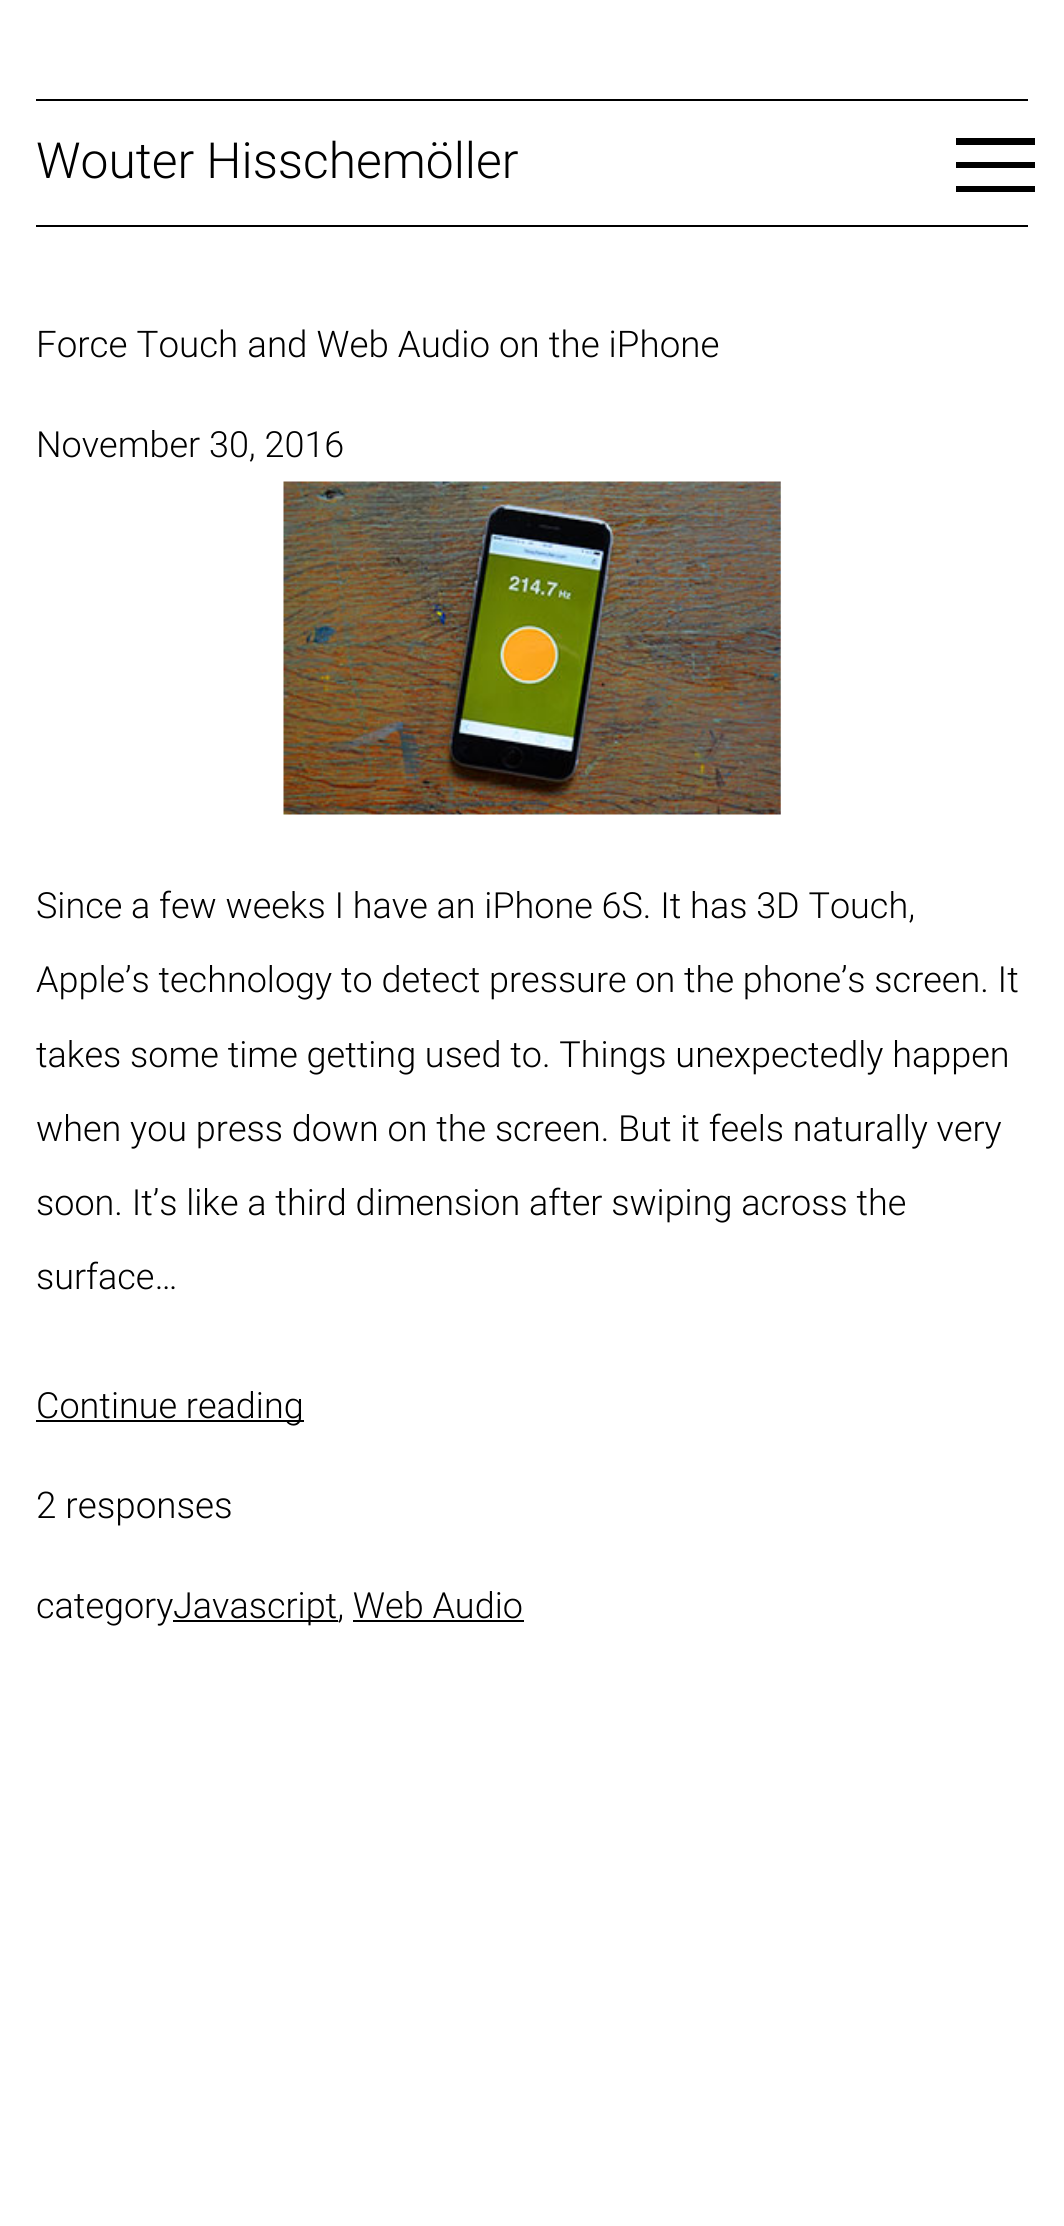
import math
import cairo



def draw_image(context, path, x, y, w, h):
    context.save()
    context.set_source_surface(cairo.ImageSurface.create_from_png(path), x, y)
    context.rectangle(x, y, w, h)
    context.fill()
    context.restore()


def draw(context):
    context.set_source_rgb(1, 1, 1)
    context.paint()
    context.set_source_rgb(0, 0, 0)
    context.rectangle(36, 99, 992, 2)
    context.fill()
    context.rectangle(36, 225, 992, 2)
    context.fill()
    context.rectangle(956, 138, 79, 7)
    context.fill()
    context.rectangle(956, 162, 79, 6)
    context.fill()
    context.rectangle(956, 186, 79, 6)
    context.fill()
    draw_image(context, "images/1.png", 283, 481, 498, 334)
    context.rectangle(36, 1420, 268, 2)
    context.fill()
    context.rectangle(173, 1620, 165, 2)
    context.fill()
    context.rectangle(353, 1620, 171, 2)
    context.fill()
    context.select_font_face("Roboto Light")
    context.set_font_size(49.75)
    context.move_to(36, 178)
    context.show_text("Wouter Hisschemöller")
    context.set_font_size(36.75)
    context.move_to(36, 357)
    context.show_text("Force Touch and Web Audio on the iPhone")
    context.set_font_size(36)
    context.move_to(36, 457)
    context.show_text("November 30, 2016")
    context.move_to(36, 918)
    context.show_text("Since a few weeks I have an iPhone 6S. It has 3D Touch,")
    context.move_to(36, 992)
    context.show_text("Apple’s technology to detect pressure on the phone’s screen. It")
    context.move_to(36, 1067)
    context.show_text("takes some time getting used to. Things unexpectedly happen")
    context.move_to(36, 1141)
    context.show_text("when you press down on the screen. But it feels naturally very")
    context.move_to(36, 1215)
    context.show_text("soon. It’s like a third dimension after swiping across the")
    context.move_to(36, 1289)
    context.show_text("surface…")
    context.move_to(36, 1418)
    context.show_text("Continue reading")
    context.set_font_size(36.75)
    context.move_to(36, 1518)
    context.show_text("2 responses")
    context.set_font_size(36)
    context.move_to(36, 1618)
    context.show_text("category")
    context.move_to(173, 1618)
    context.show_text("Javascript, Web Audio")


surface = cairo.ImageSurface(cairo.Format.RGB24, 1064, 2226)
context = cairo.Context(surface)
options = cairo.FontOptions()
options.set_hint_metrics(cairo.HintMetrics.OFF)
options.set_hint_style(cairo.HintStyle.NONE)
context.set_font_options(options)
context.set_miter_limit(4)
draw(context)
surface.write_to_png("out.png")
